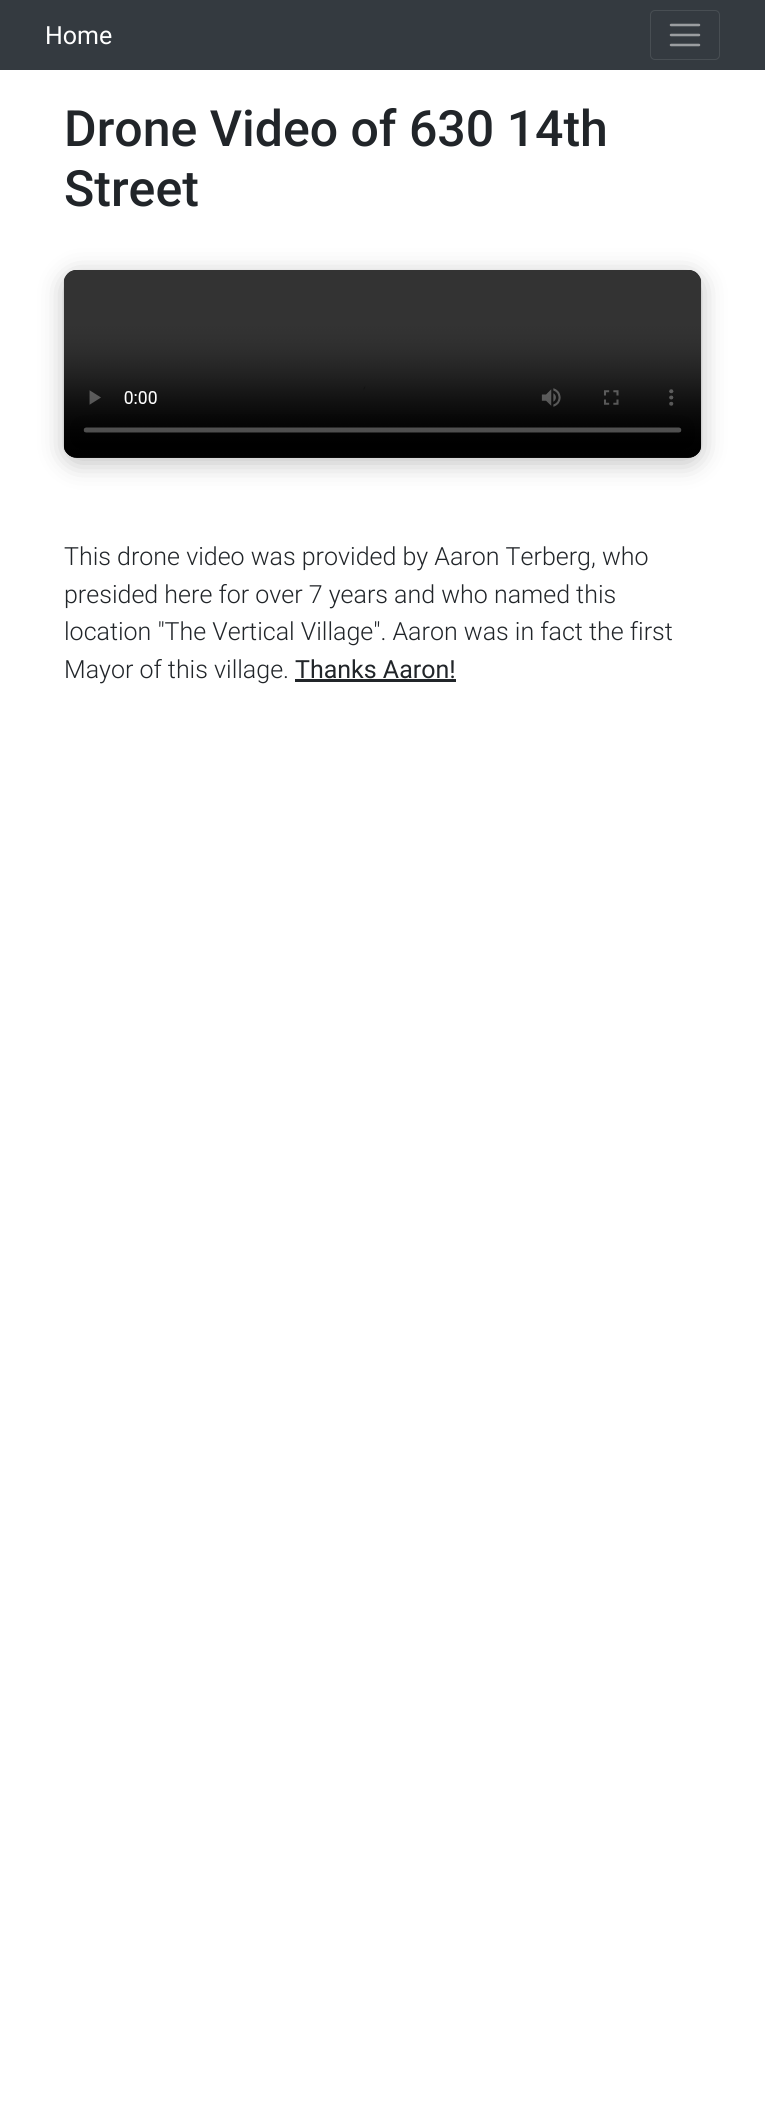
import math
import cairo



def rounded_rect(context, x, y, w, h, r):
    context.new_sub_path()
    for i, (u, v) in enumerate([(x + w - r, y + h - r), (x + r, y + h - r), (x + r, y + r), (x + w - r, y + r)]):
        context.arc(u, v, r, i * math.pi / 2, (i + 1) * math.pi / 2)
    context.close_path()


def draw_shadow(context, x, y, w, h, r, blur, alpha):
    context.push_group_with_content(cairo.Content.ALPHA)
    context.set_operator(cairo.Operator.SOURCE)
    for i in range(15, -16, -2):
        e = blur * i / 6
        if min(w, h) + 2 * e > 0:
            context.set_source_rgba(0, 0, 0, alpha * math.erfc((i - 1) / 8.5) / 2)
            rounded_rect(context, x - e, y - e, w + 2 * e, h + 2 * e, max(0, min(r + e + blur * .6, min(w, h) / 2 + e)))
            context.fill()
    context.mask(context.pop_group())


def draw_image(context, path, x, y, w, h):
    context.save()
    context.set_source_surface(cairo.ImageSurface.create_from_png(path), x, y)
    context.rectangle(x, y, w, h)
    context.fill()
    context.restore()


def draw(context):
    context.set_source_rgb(1, 1, 1)
    context.paint()
    context.set_source_rgb(52 / 255, 58 / 255, 64 / 255)
    context.rectangle(0, 0, 765, 70)
    context.fill()
    rounded_rect(context, 650.5, 10.5, 69, 49, 4.5)
    context.set_source_rgb(72 / 255, 78 / 255, 83 / 255)
    context.set_line_width(1)
    context.stroke()
    context.new_path()
    context.move_to(671, 25)
    context.line_to(699, 25)
    context.move_to(671, 35)
    context.line_to(699, 35)
    context.move_to(671, 45)
    context.line_to(699, 45)
    context.set_source_rgb(154 / 255, 157 / 255, 160 / 255)
    context.set_line_width(2.5)
    context.set_line_cap(cairo.LineCap.ROUND)
    context.stroke()
    context.set_source_rgb(0, 0, 0)
    draw_shadow(context, 64, 275, 637, 188, 13, 12.5, 0.25)
    context.set_source_rgb(0, 0, 0)
    rounded_rect(context, 64, 270, 637, 188, 13)
    context.fill()
    draw_image(context, "images/1.png", 63, 270, 639, 188)
    context.set_source_rgb(33 / 255, 37 / 255, 41 / 255)
    context.rectangle(295, 679, 161, 3)
    context.fill()
    context.select_font_face("Roboto")
    context.set_font_size(25)
    context.set_source_rgb(1, 1, 1)
    context.move_to(45, 44)
    context.show_text("Home")
    context.select_font_face("Roboto Medium")
    context.set_font_size(50)
    context.set_source_rgb(33 / 255, 37 / 255, 41 / 255)
    context.move_to(64, 146)
    context.show_text("Drone Video of 630 14th")
    context.move_to(64, 206)
    context.show_text("Street")
    context.select_font_face("Roboto Light")
    context.set_font_size(25)
    context.move_to(64, 565)
    context.show_text("This drone video was provided by Aaron Terberg, who")
    context.move_to(64, 603)
    context.show_text("presided here for over 7 years and who named this")
    context.move_to(64, 640)
    context.show_text("location \"The Vertical Village\". Aaron was in fact the first")
    context.move_to(64, 678)
    context.show_text("Mayor of this village.")
    context.select_font_face("Roboto")
    context.move_to(295, 678)
    context.show_text("Thanks Aaron!")


surface = cairo.ImageSurface(cairo.Format.RGB24, 765, 2121)
context = cairo.Context(surface)
options = cairo.FontOptions()
options.set_hint_metrics(cairo.HintMetrics.OFF)
options.set_hint_style(cairo.HintStyle.NONE)
context.set_font_options(options)
context.set_miter_limit(4)
draw(context)
surface.write_to_png("out.png")
